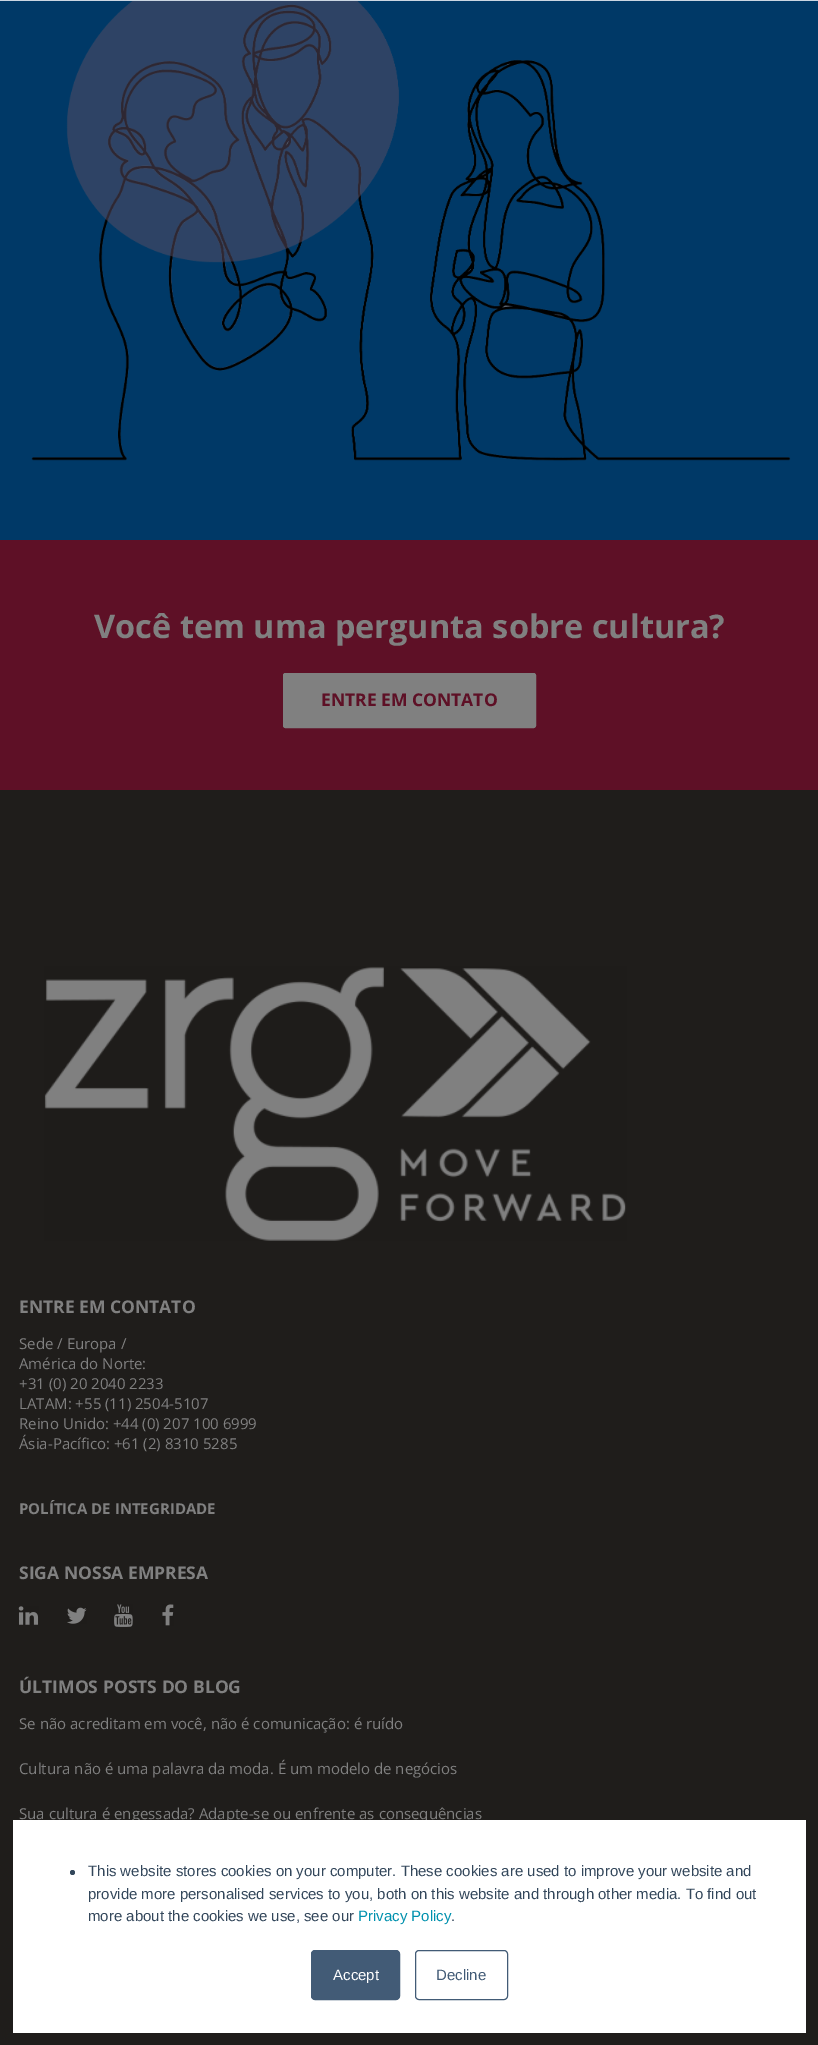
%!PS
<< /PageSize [818 2045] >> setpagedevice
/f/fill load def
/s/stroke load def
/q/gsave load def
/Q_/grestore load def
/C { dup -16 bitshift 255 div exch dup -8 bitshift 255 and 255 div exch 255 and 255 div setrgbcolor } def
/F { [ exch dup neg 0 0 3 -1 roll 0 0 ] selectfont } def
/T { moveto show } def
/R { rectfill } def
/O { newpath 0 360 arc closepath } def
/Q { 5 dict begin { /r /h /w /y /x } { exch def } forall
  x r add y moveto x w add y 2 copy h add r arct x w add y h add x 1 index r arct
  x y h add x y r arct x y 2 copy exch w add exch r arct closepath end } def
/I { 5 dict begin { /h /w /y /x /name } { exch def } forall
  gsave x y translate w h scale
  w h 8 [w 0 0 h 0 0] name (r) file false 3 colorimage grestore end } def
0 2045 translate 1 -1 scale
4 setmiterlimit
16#5E1026 C
0 0 818 2045 R
16#003967 C
0 1 818 539 R
(1.rgb) 31 1 760 460 I
/OpenSans-Bold 32.5 F
16#808080 C
(Você tem uma pergunta sobre cultura?) 94 638 T
283.5 673.5 252 54 2 Q q f Q_
s
/OpenSans-Bold 17.5 F
16#5E1026 C
(ENTRE EM CONTATO) 321 706 T
16#1F1D1B C
0 790 818 1255 R
(2.rgb) 44 966 583 275 I
16#808080 C
(ENTRE EM CONTATO) 19 1313 T
/OpenSans-Regular 15 F
(Sede / Europa /) 19 1349 T
(América do Norte:) 19 1369 T
(+31 \(0\) 20 2040 2233) 19 1389 T
(LATAM: +55 \(11\) 2504-5107) 19 1409 T
(Reino Unido: +44 \(0\) 207 100 6999) 19 1429 T
(Ásia-Pacífico: +61 \(2\) 8310 5285) 19 1449 T
/OpenSans-Bold 15 F
(POLÍTICA DE INTEGRIDADE) 19 1514 T
/OpenSans-Bold 17.5 F
(SIGA NOSSA EMPRESA) 19 1579 T
(3.rgb) 18 1606 21 19 I
(4.rgb) 67 1607 20 17 I
(5.rgb) 114 1604 19 23 I
(6.rgb) 162 1604 12 22 I
(ÚLTIMOS POSTS DO BLOG) 19 1693 T
/OpenSans-Regular 15 F
(Se não acreditam em você, não é comunicação: é ruído) 19 1729 T
(Cultura não é uma palavra da moda. É um modelo de negócios) 19 1774 T
(Sua cultura é engessada? Adapte-se ou enfrente as consequências) 19 1819 T
16#CBD6E2 C
0 0 818 1 R
16#FFFFFF C
13 1820 793 213 R
16#33475B C
72.5 1872.5 2.5 O f
/LiberationSans-Regular 15 F
(This website stores cookies on your computer. These cookies are used to improve your website and) 88 1876 T
(provide more personalised services to you, both on this website and through other media. To find out) 88 1899 T
(more about the cookies we use, see our) 88 1921 T
16#0091AE C
(Privacy Policy) 358 1921 T
16#33475B C
(.) 451 1921 T
16#425B76 C
311.5 1950.5 88 49 3.5 Q q f Q_
s
16#FFFFFF C
(Accept) 333 1980 T
16#425B76 C
415.5 1950.5 92 49 3.5 Q s
(Decline) 436 1980 T
showpage
